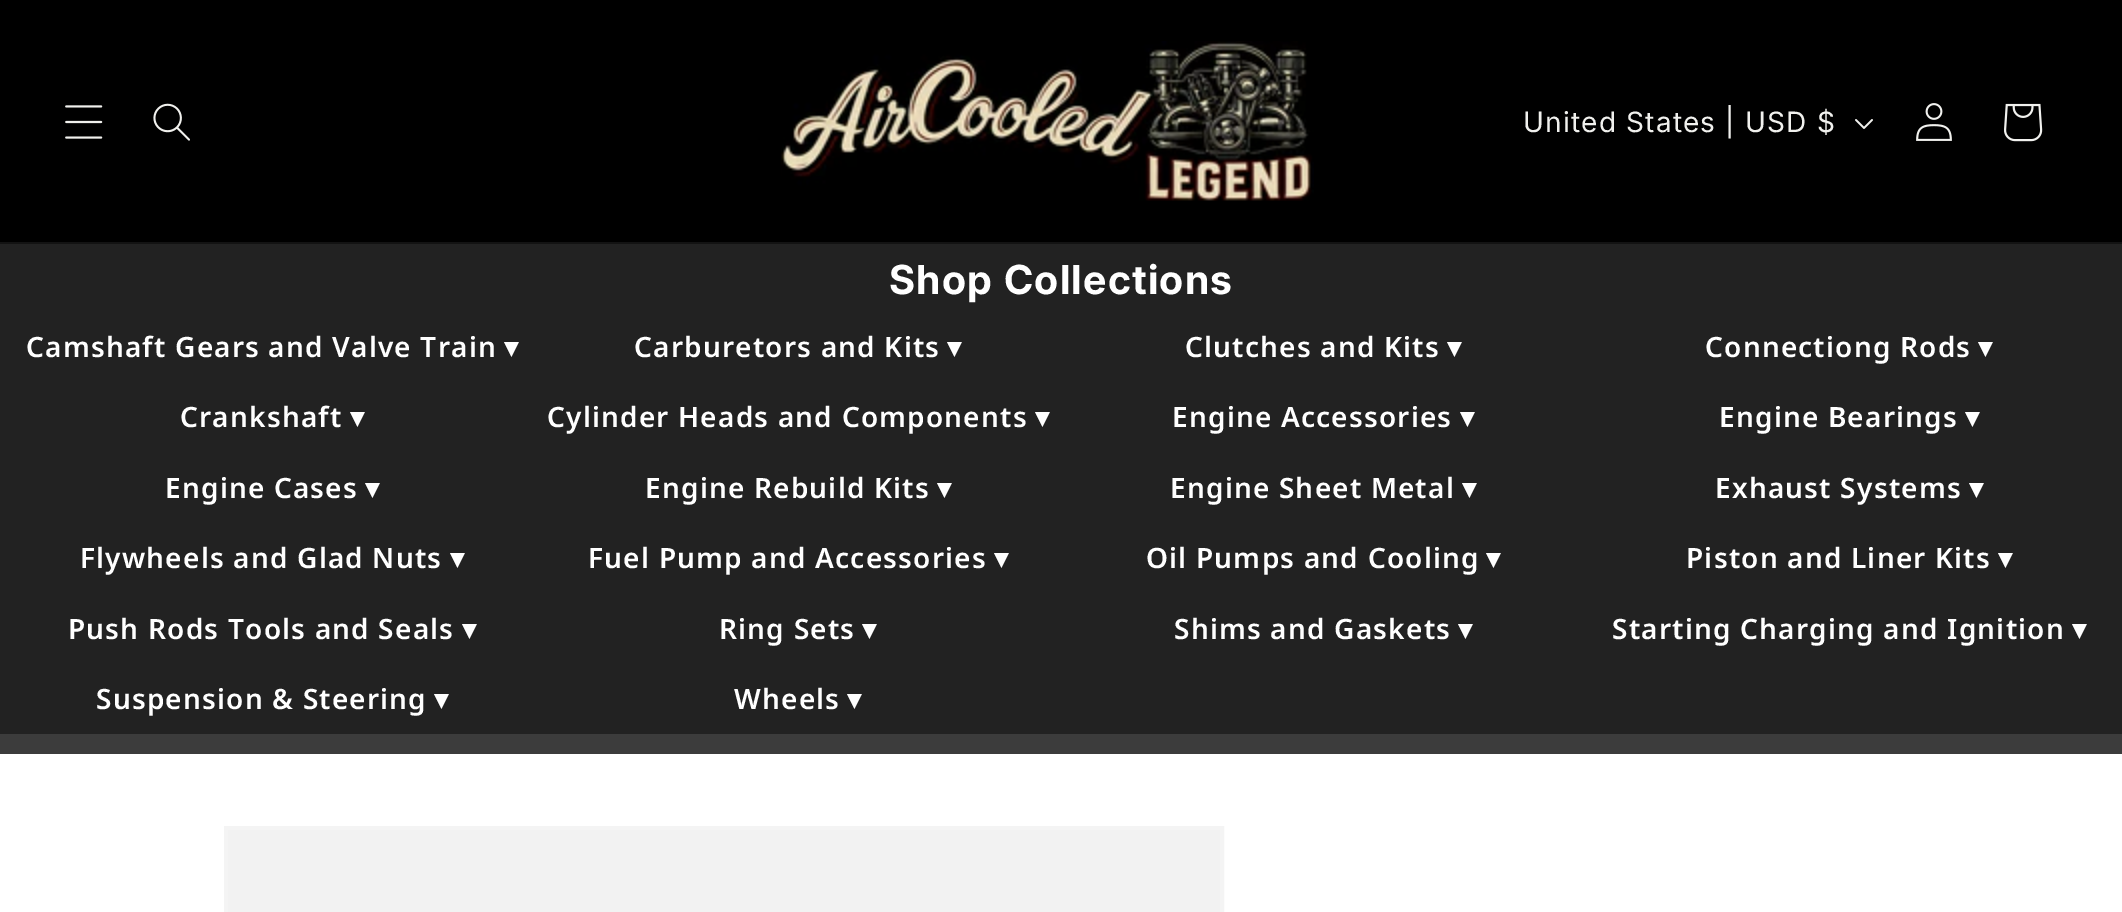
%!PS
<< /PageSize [2122 912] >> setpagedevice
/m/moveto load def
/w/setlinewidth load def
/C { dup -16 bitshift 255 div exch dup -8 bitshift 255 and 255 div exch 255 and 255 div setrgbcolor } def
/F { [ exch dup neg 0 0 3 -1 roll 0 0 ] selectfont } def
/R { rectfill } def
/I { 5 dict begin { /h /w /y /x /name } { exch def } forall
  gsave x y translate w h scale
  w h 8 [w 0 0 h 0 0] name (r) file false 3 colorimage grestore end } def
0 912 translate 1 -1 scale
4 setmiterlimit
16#3C3C3C C
0 0 2122 912 R
16#000000 C
0 0 2122 242 R
16#131313 C
0 242 2122 2 R
(1.rgb) 65 105 38 34 I
(2.rgb) 153 103 37 38 I
(3.rgb) 781 41 533 160 I
/Inter-Regular 28 F
16#F1F1EE C
1523 132 m 1.2 0 (United States | USD $) ashow
(4.rgb) 1855 119 18 10 I
(5.rgb) 1916 103 36 38 I
(6.rgb) 2004 103 39 39 I
16#222222 C
0 244 2122 490 R
/Inter-Bold 40 F
16#FFFFFF C
889 294 m 1.2 0 (Shop Collections) ashow
/NotoSans-SemiBold 28 F
26 357 m 1.2 0 (Camshaft Gears and Valve Train) ashow
/DejaVuSans-Bold 28 F
504 357 m 1.2 0 (▾) ashow
/NotoSans-SemiBold 28 F
634 357 m 1.2 0 (Carburetors and Kits) ashow
/DejaVuSans-Bold 28 F
947 357 m 1.2 0 (▾) ashow
/NotoSans-SemiBold 28 F
1185 357 m 1.2 0 (Clutches and Kits) ashow
/DejaVuSans-Bold 28 F
1447 357 m 1.2 0 (▾) ashow
/NotoSans-SemiBold 28 F
1705 357 m 1.2 0 (Connectiong Rods) ashow
/DejaVuSans-Bold 28 F
1978 357 m 1.2 0 (▾) ashow
/NotoSans-SemiBold 28 F
180 427 m 1.2 0 (Crankshaft) ashow
/DejaVuSans-Bold 28 F
350 427 m 1.2 0 (▾) ashow
/NotoSans-SemiBold 28 F
547 427 m 1.2 0 (Cylinder Heads and Components) ashow
/DejaVuSans-Bold 28 F
1035 427 m 1.2 0 (▾) ashow
/NotoSans-SemiBold 28 F
1172 427 m 1.2 0 (Engine Accessories) ashow
/DejaVuSans-Bold 28 F
1460 427 m 1.2 0 (▾) ashow
/NotoSans-SemiBold 28 F
1719 427 m 1.2 0 (Engine Bearings) ashow
/DejaVuSans-Bold 28 F
1965 427 m 1.2 0 (▾) ashow
/NotoSans-SemiBold 28 F
165 498 m 1.2 0 (Engine Cases) ashow
/DejaVuSans-Bold 28 F
365 498 m 1.2 0 (▾) ashow
/NotoSans-SemiBold 28 F
645 498 m 1.2 0 (Engine Rebuild Kits) ashow
/DejaVuSans-Bold 28 F
937 498 m 1.2 0 (▾) ashow
/NotoSans-SemiBold 28 F
1170 498 m 1.2 0 (Engine Sheet Metal) ashow
/DejaVuSans-Bold 28 F
1462 498 m 1.2 0 (▾) ashow
/NotoSans-SemiBold 28 F
1715 498 m 1.2 0 (Exhaust Systems) ashow
/DejaVuSans-Bold 28 F
1969 498 m 1.2 0 (▾) ashow
/NotoSans-SemiBold 28 F
80 568 m 1.2 0 (Flywheels and Glad Nuts) ashow
/DejaVuSans-Bold 28 F
450 568 m 1.2 0 (▾) ashow
/NotoSans-SemiBold 28 F
588 568 m 1.2 0 (Fuel Pump and Accessories) ashow
/DejaVuSans-Bold 28 F
994 568 m 1.2 0 (▾) ashow
/NotoSans-SemiBold 28 F
1146 568 m 1.2 0 (Oil Pumps and Cooling) ashow
/DejaVuSans-Bold 28 F
1486 568 m 1.2 0 (▾) ashow
/NotoSans-SemiBold 28 F
1686 568 m 1.2 0 (Piston and Liner Kits) ashow
/DejaVuSans-Bold 28 F
1998 568 m 1.2 0 (▾) ashow
/NotoSans-SemiBold 28 F
68 639 m 1.2 0 (Push Rods Tools and Seals) ashow
/DejaVuSans-Bold 28 F
462 639 m 1.2 0 (▾) ashow
/NotoSans-SemiBold 28 F
719 639 m 1.2 0 (Ring Sets) ashow
/DejaVuSans-Bold 28 F
862 639 m 1.2 0 (▾) ashow
/NotoSans-SemiBold 28 F
1174 639 m 1.2 0 (Shims and Gaskets) ashow
/DejaVuSans-Bold 28 F
1458 639 m 1.2 0 (▾) ashow
/NotoSans-SemiBold 28 F
1612 639 m 1.2 0 (Starting Charging and Ignition) ashow
/DejaVuSans-Bold 28 F
2072 639 m 1.2 0 (▾) ashow
/NotoSans-SemiBold 28 F
96 709 m 1.2 0 (Suspension & Steering) ashow
/DejaVuSans-Bold 28 F
434 709 m 1.2 0 (▾) ashow
/NotoSans-SemiBold 28 F
734 709 m 1.2 0 (Wheels) ashow
/DejaVuSans-Bold 28 F
847 709 m 1.2 0 (▾) ashow
0 754 2122 158 R
16#F4F4F4 C
4 w
226 828 996 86 rectstroke
16#F2F2F2 C
228 830 992 82 R
showpage
